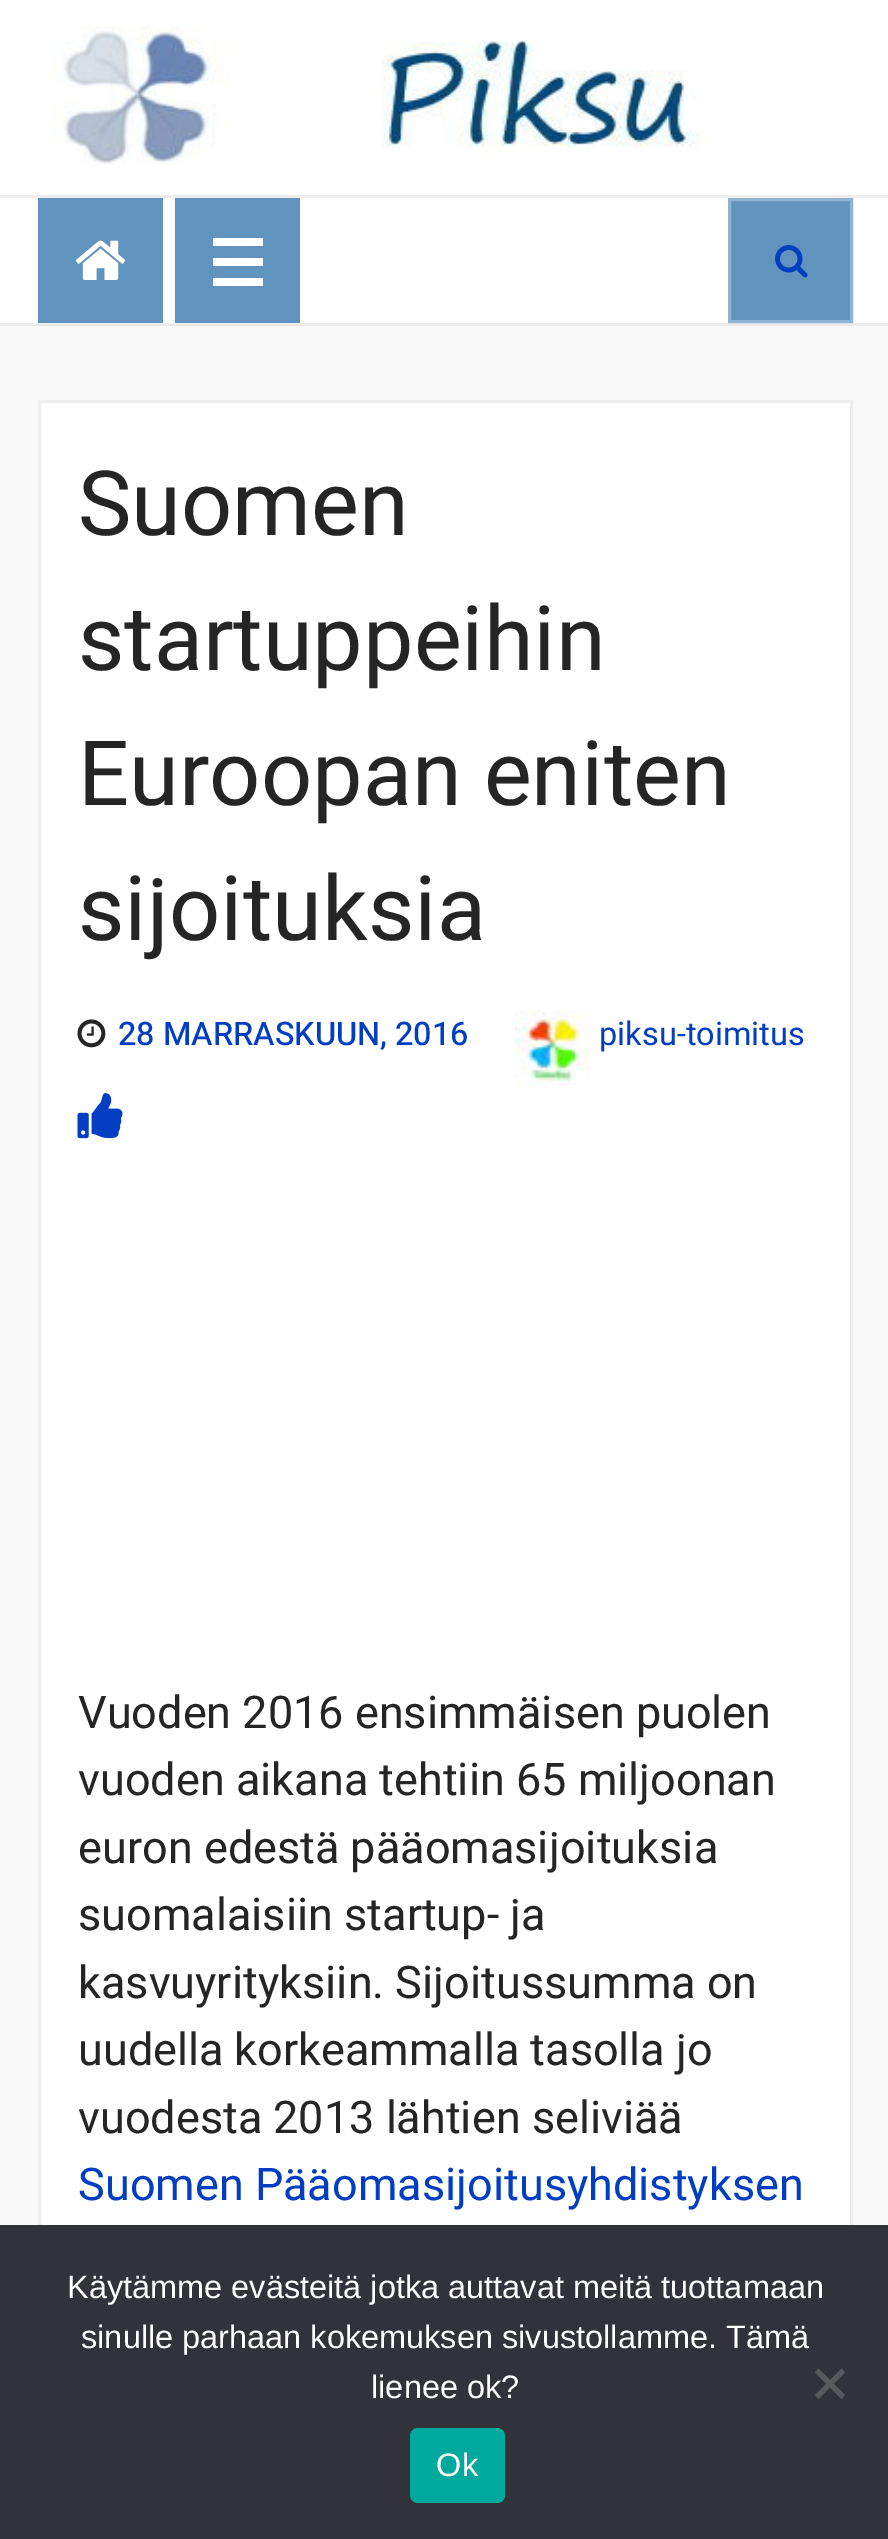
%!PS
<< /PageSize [888 2539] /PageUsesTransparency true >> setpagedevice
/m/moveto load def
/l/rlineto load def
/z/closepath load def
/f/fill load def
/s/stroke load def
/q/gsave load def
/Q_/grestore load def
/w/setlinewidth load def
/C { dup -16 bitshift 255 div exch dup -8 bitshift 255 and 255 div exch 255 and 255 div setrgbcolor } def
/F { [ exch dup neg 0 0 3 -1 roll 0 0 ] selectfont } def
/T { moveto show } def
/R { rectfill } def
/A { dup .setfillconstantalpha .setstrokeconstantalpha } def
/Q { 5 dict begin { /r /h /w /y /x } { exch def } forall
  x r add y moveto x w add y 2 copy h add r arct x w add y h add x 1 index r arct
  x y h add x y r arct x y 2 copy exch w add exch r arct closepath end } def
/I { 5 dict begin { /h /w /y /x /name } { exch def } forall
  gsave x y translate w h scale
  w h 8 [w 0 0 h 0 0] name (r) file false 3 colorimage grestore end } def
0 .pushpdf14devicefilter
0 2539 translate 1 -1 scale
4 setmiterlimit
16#F9F9F9 C
0 0 888 2539 R
16#FFFFFF C
0 0 888 325 R
(1.rgb) 50 25 661 141 I
16#EDEDED C
0 195 888 3 R
0.07 A
16#000000 C
0 323 888 3 R
1 A
16#6193BF C
38 198 125 125 R
(2.rgb) 75 240 51 40 I
175 198 125 125 R
16#FFFFFF C
213 238 50 8 R
213 258 50 8 R
213 278 50 8 R
16#6193BF C
729.5 199.5 m 122 0 l 0 122 l -122 0 l z q f Q_
16#90B3D2 C
3 w
s
(3.rgb) 775 245 33 33 I
16#FFFFFF C
41 403 809 1822 R
16#EDEDED C
39.5 401.5 812 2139 rectstroke
/Heebo-Regular 90 F
16#252525 C
(Suomen) 78 535 T
(startuppeihin) 78 670 T
(Euroopan eniten) 78 805 T
(sijoituksia) 78 940 T
(4.rgb) 77 1019 29 29 I
/Heebo-Medium 32.5 F
16#013EC2 C
(28 MARRASKUUN, 2016) 118 1045 T
(5.rgb) 515 1010 75 75 I
/Heebo-Regular 32.5 F
(piksu-toimitus) 599 1045 T
(6.rgb) 77 1093 46 46 I
/Heebo-Regular 45 F
16#252525 C
(Vuoden 2016 ensimmäisen puolen) 78 1728 T
(vuoden aikana tehtiin 65 miljoonan) 78 1795 T
(euron edestä pääomasijoituksia) 78 1863 T
(suomalaisiin startup- ja) 78 1930 T
(kasvuyrityksiin. Sijoitussumma on) 78 1998 T
(uudella korkeammalla tasolla jo) 78 2065 T
(vuodesta 2013 lähtien seliviää) 78 2133 T
16#013EC2 C
(Suomen Pääomasijoitusyhdistyksen) 78 2200 T
16#32323A C
0 2225 888 314 R
/LiberationSans-Regular 32.5 F
16#FFFFFF C
(Käytämme evästeitä jotka auttavat meitä tuottamaan) 67 2298 T
(sinulle parhaan kokemuksen sivustollamme. Tämä) 81 2348 T
(lienee ok?) 371 2398 T
16#59595D C
841.5 2368.5 m 3.5 4 l -26.5 26.5 l -3.5 -4 l z f
815 2372.5 m 3.5 -4 l 26.5 26.5 l -3.5 4 l z f
16#00A99D C
410 2428 95 75 8 Q f
16#FFFFFF C
436 2476 m 1 0 (Ok) ashow
.poppdf14devicefilter showpage
